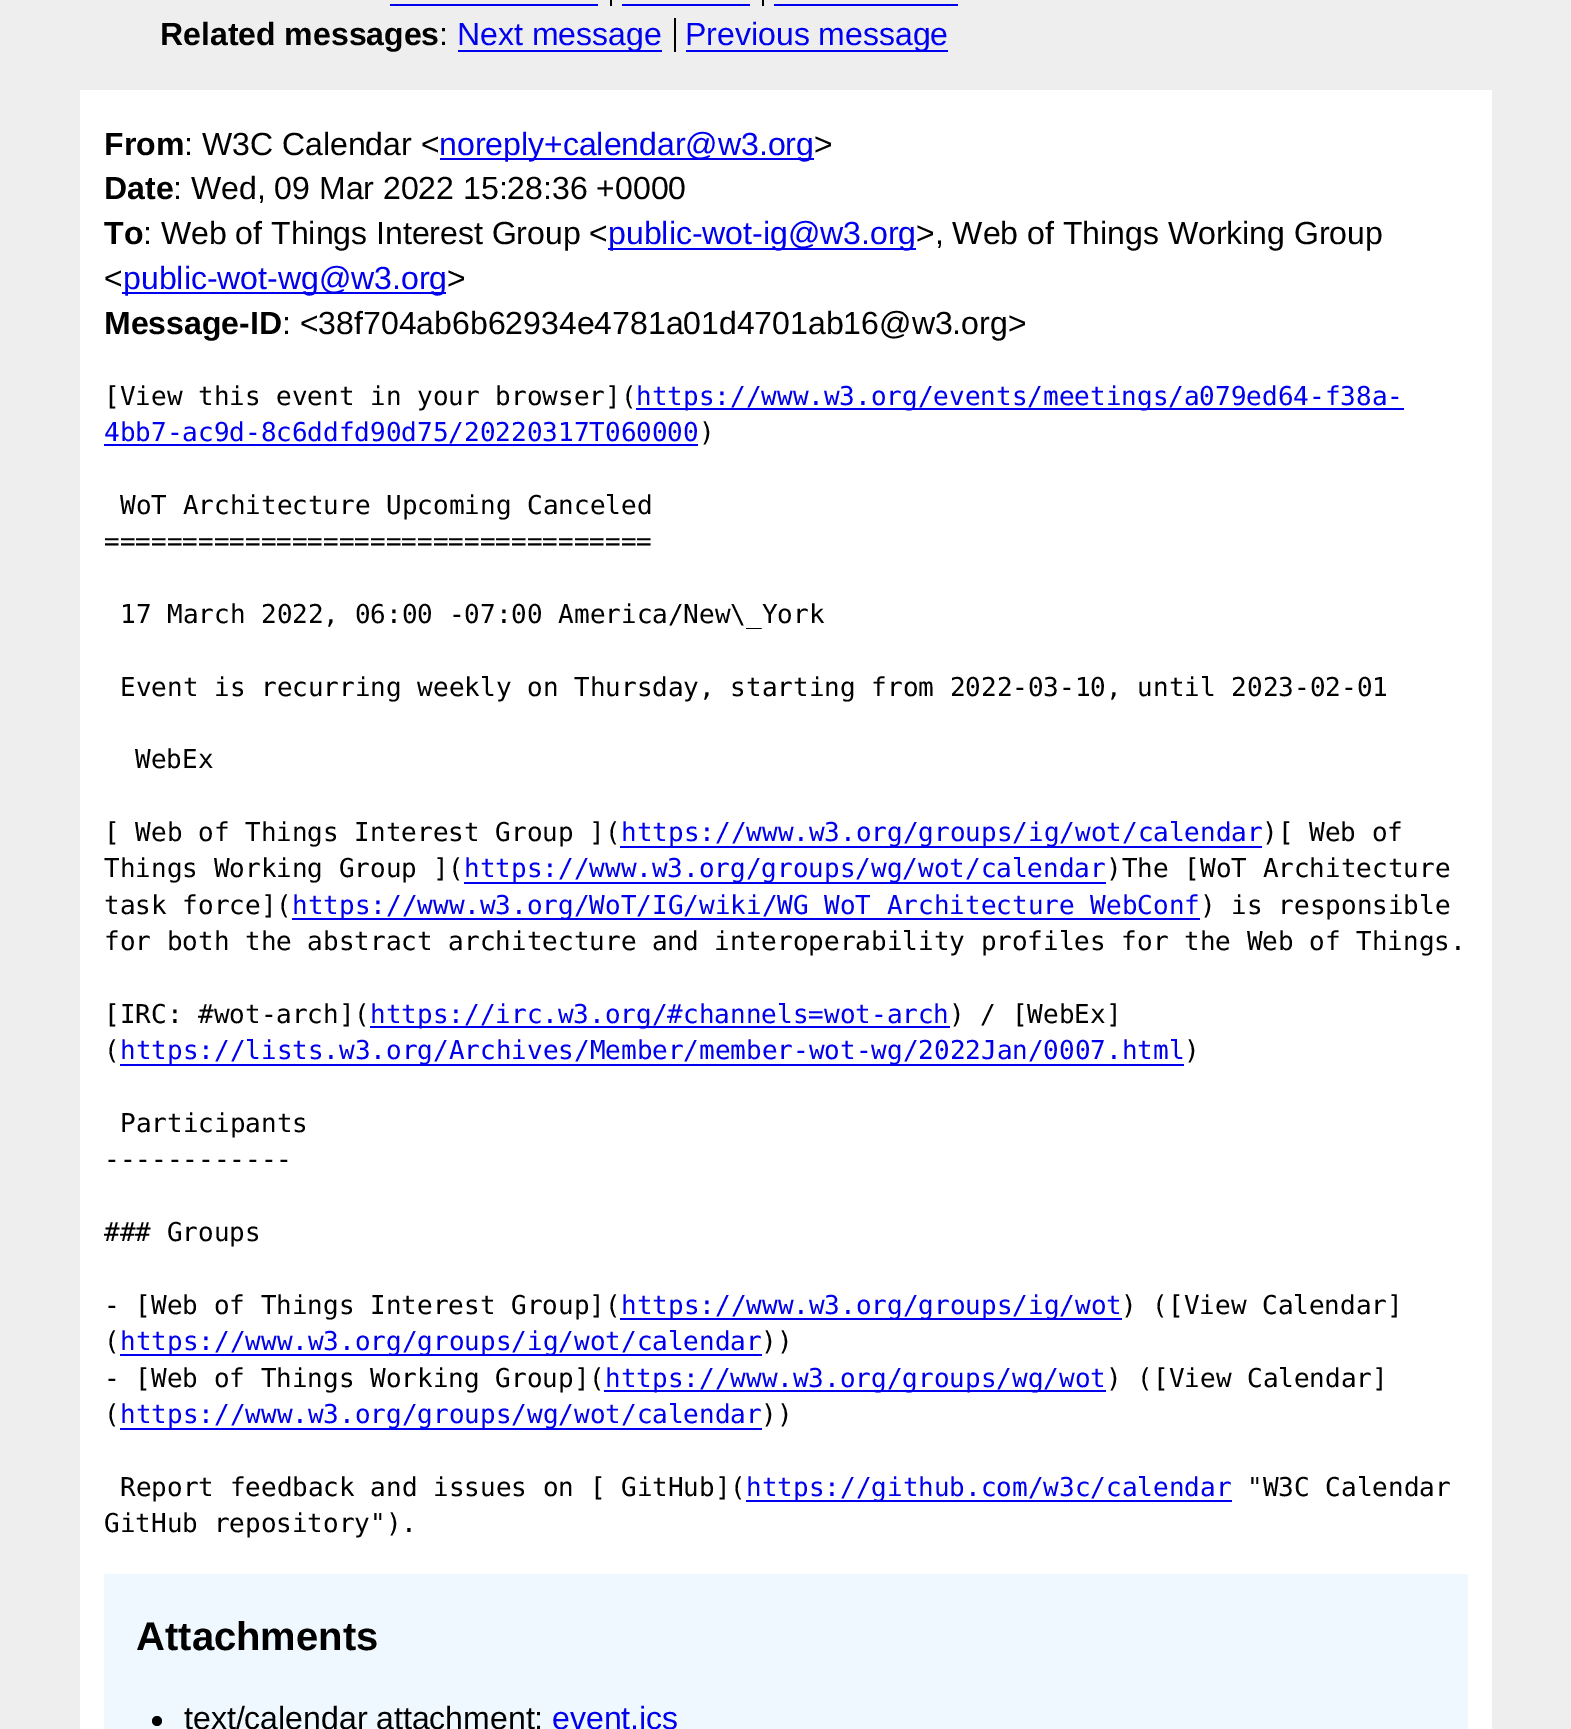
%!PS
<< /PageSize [1571 1729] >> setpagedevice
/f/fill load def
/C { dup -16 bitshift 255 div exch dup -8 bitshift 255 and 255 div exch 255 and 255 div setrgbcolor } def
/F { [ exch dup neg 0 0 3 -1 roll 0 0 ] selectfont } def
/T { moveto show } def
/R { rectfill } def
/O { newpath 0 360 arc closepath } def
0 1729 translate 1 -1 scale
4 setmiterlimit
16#EEEEEE C
0 0 1571 1729 R
16#0000EE C
390 4 208 2 R
16#000000 C
610 0 2 6 R
16#0000EE C
622 4 128 2 R
16#000000 C
762 0 2 6 R
16#0000EE C
774 4 184 2 R
/LiberationSans-Bold 32 F
16#000000 C
(Related messages) 160 45 T
/LiberationSans-Regular 32 F
(:) 439 45 T
16#0000EE C
458 50 204 2 R
(Next message) 457 45 T
686 50 262 2 R
(Previous message) 685 45 T
16#000000 C
674 18 2 34 R
16#FFFFFF C
80 90 1412 1639 R
/LiberationSans-Bold 32 F
16#000000 C
(From) 104 155 T
/LiberationSans-Regular 32 F
(: W3C Calendar <) 184 155 T
16#0000EE C
440 158 374 2 R
(noreply+calendar@w3.org) 439 155 T
16#000000 C
(>) 814 155 T
/LiberationSans-Bold 32 F
(Date) 104 199 T
/LiberationSans-Regular 32 F
(: Wed, 09 Mar 2022 15:28:36 +0000) 173 199 T
/LiberationSans-Bold 32 F
(To) 104 244 T
/LiberationSans-Regular 32 F
(: Web of Things Interest Group <) 143 244 T
16#0000EE C
608 248 308 2 R
(public-wot-ig@w3.org) 608 244 T
16#000000 C
(>, Web of Things Working Group) 916 244 T
(<) 104 289 T
16#0000EE C
122 292 324 2 R
(public-wot-wg@w3.org) 123 289 T
16#000000 C
(>) 447 289 T
/LiberationSans-Bold 32 F
(Message-ID) 104 334 T
/LiberationSans-Regular 32 F
(: <38f704ab6b62934e4781a01d4701ab16@w3.org>) 282 334 T
/DejaVuSansMono-Regular 26 F
([View this event in your browser]\() 104 405 T
16#0000EE C
636 408 768 2 R
(https://www.w3.org/events/meetings/a079ed64-f38a-) 636 405 T
(4bb7-ac9d-8c6ddfd90d75/20220317T060000) 104 441 T
104 444 594 2 R
16#000000 C
(\)) 699 441 T
(WoT Architecture Upcoming Canceled) 120 514 T
(===================================) 104 550 T
(17 March 2022, 06:00 -07:00 America/New\\_York) 120 623 T
(Event is recurring weekly on Thursday, starting from 2022-03-10, until 2023-02-01) 120 696 T
(WebEx) 135 768 T
([ Web of Things Interest Group ]\() 104 841 T
16#0000EE C
620 846 642 2 R
(https://www.w3.org/groups/ig/wot/calendar) 621 841 T
16#000000 C
(\)[ Web of) 1262 841 T
(Things Working Group ]\() 104 877 T
16#0000EE C
464 882 642 2 R
(https://www.w3.org/groups/wg/wot/calendar) 464 877 T
16#000000 C
(\)The [WoT Architecture) 1106 877 T
(task force]\() 104 914 T
16#0000EE C
292 918 908 2 R
(https://www.w3.org/WoT/IG/wiki/WG_WoT_Architecture_WebConf) 292 914 T
16#000000 C
(\) is responsible) 1200 914 T
(for both the abstract architecture and interoperability profiles for the Web of Things.) 104 950 T
([IRC: #wot-arch]\() 104 1023 T
16#0000EE C
370 1026 580 2 R
(https://irc.w3.org/#channels=wot-arch) 370 1023 T
16#000000 C
(\) / [WebEx]) 949 1023 T
(\() 104 1059 T
16#0000EE C
120 1064 1064 2 R
(https://lists.w3.org/Archives/Member/member-wot-wg/2022Jan/0007.html) 120 1059 T
16#000000 C
(\)) 1184 1059 T
(Participants) 120 1132 T
(------------) 104 1168 T
(### Groups) 104 1241 T
(- [Web of Things Interest Group]\() 104 1314 T
16#0000EE C
620 1318 502 2 R
(https://www.w3.org/groups/ig/wot) 621 1314 T
16#000000 C
(\) \([View Calendar]) 1121 1314 T
(\() 104 1350 T
16#0000EE C
120 1354 642 2 R
(https://www.w3.org/groups/ig/wot/calendar) 120 1350 T
16#000000 C
(\)\)) 761 1350 T
(- [Web of Things Working Group]\() 104 1387 T
16#0000EE C
604 1390 502 2 R
(https://www.w3.org/groups/wg/wot) 605 1387 T
16#000000 C
(\) \([View Calendar]) 1106 1387 T
(\() 104 1423 T
16#0000EE C
120 1428 642 2 R
(https://www.w3.org/groups/wg/wot/calendar) 120 1423 T
16#000000 C
(\)\)) 761 1423 T
(Report feedback and issues on [ GitHub]\() 120 1496 T
16#0000EE C
746 1500 486 2 R
(https://github.com/w3c/calendar) 746 1496 T
16#000000 C
("W3C Calendar) 1247 1496 T
(GitHub repository"\).) 104 1532 T
16#F0F8FF C
104 1574 1364 155 R
/LiberationSans-Bold 40 F
16#000000 C
(Attachments) 136 1650 T
157 1721 5 O f
/LiberationSans-Regular 32 F
(text/calendar attachment:) 184 1729 T
16#0000EE C
(event.ics) 552 1729 T
showpage
